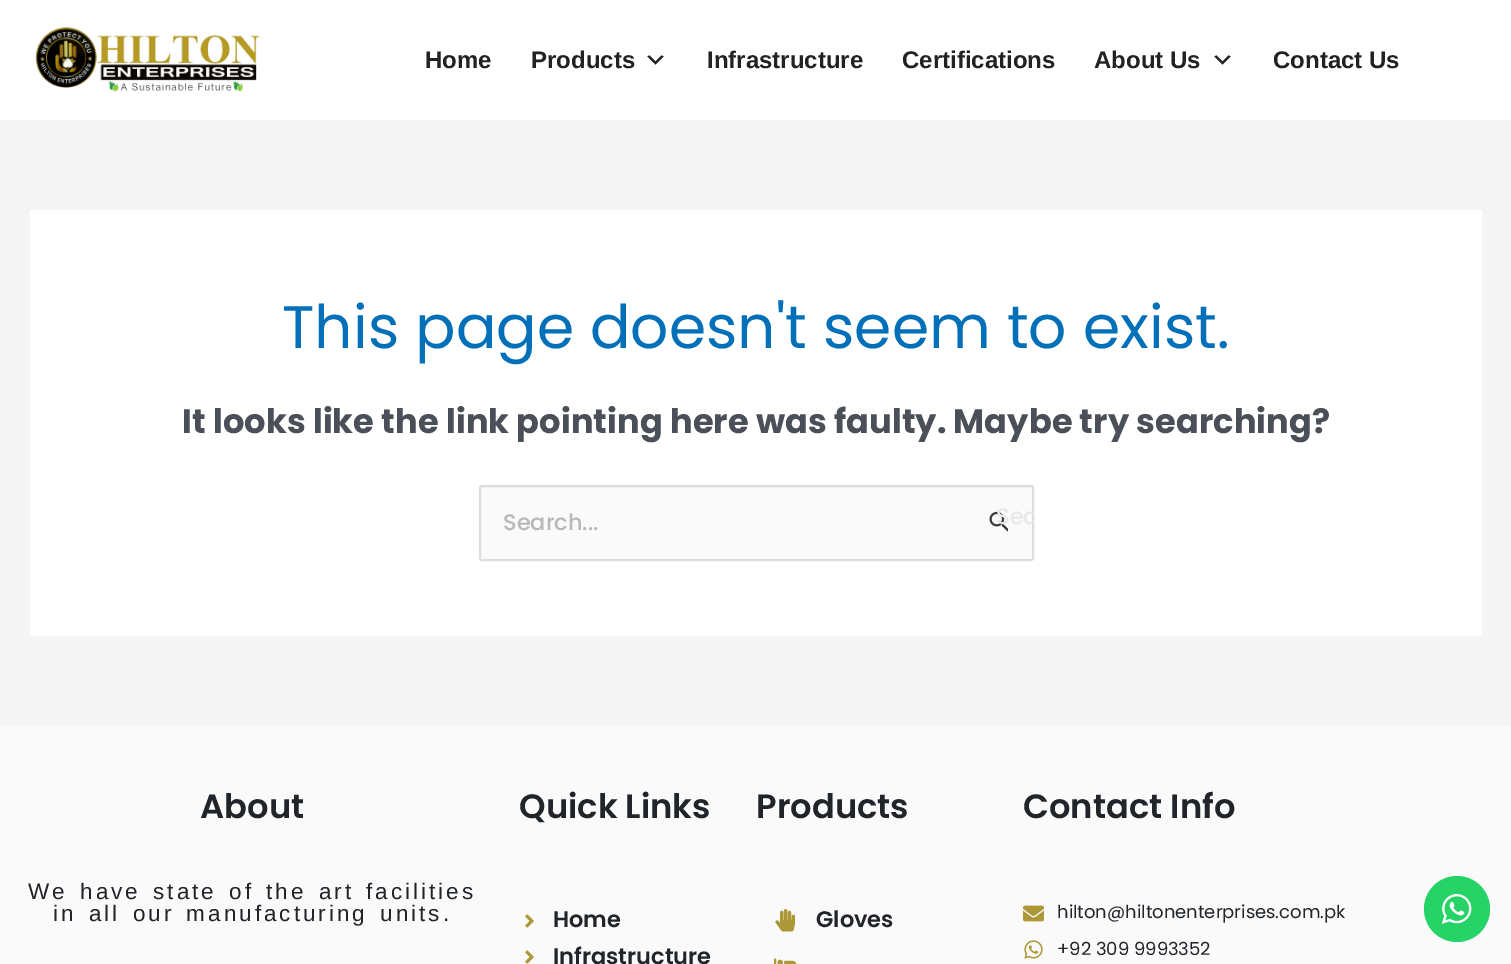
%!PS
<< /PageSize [1511 964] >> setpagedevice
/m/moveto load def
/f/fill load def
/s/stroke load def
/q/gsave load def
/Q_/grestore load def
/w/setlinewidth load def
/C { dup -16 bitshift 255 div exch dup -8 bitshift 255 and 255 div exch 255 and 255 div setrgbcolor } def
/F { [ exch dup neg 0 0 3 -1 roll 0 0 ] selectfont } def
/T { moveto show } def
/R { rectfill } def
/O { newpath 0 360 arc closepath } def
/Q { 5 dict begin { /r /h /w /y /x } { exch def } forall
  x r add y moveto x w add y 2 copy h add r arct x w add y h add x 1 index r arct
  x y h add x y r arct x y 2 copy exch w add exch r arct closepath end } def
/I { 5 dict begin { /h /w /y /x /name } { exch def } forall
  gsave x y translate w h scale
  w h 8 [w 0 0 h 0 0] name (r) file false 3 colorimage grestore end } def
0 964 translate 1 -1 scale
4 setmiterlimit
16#F5F5F5 C
0 0 1511 964 R
16#FFFFFF C
0 0 1511 120 R
(1.rgb) 35 26 225 66 I
/LiberationSans-Bold 24 F
16#222222 C
(Home) 425 68 T
(Products) 531 68 T
(2.rgb) 647 55 17 10 I
(Infrastructure) 707 68 T
(Certifications) 902 68 T
(About Us) 1094 68 T
(2.rgb) 1214 55 17 10 I
(Contact Us) 1273 68 T
16#FFFFFF C
30 210 1452 426 R
/Poppins-Regular 60 F
16#0170B9 C
(This page doesn't seem to exist.) 282 348 T
/Poppins-Bold 33.75 F
16#4B4F58 C
(It looks like the link pointing here was faulty. Maybe try searching?) 182 433 T
16#FAFAFA C
480 486 553 74 2 Q q f Q_
16#DDDDDD C
2 w
s
/Poppins-Medium 22.5 F
16#B8B8B8 C
(Search...) 503 530 T
(3.rgb) 989 511 19 21 I
q
966 485 68 61 3 Q clip newpath
16#E8E8E8 C
(Sea) 996 524 T
Q_
16#FAFAFA C
0 726 1511 238 R
/Poppins-SemiBold 33.75 F
16#212529 C
(About) 200 818 T
/LiberationSans-Regular 22.5 F
28 899 m 3 0 32 3 0 (We have state of the art facilities) awidthshow
53 921 m 3 0 32 3 0 (in all our manufacturing units.) awidthshow
/Poppins-SemiBold 33.75 F
(Quick Links) 519 818 T
(4.rgb) 525 914 9 14 I
/Poppins-SemiBold 22.5 F
(Home) 553 927 T
(4.rgb) 525 950 9 14 I
(Infrastructure) 553 964 T
/Poppins-SemiBold 33.75 F
(Products) 756 818 T
(5.rgb) 775 909 21 23 I
/Poppins-SemiBold 22.5 F
(Gloves) 816 927 T
(6.rgb) 774 958 23 6 I
/Poppins-SemiBold 33.75 F
(Contact Info) 1023 818 T
(7.rgb) 1023 905 21 17 I
/Poppins-Regular 18 F
(hilton@hiltonenterprises.com.pk) 1057 918 T
(8.rgb) 1024 940 19 19 I
(+92 309 9993352) 1057 955 T
16#25D366 C
1457 909 33 O f
(9.rgb) 1442 894 30 30 I
showpage
